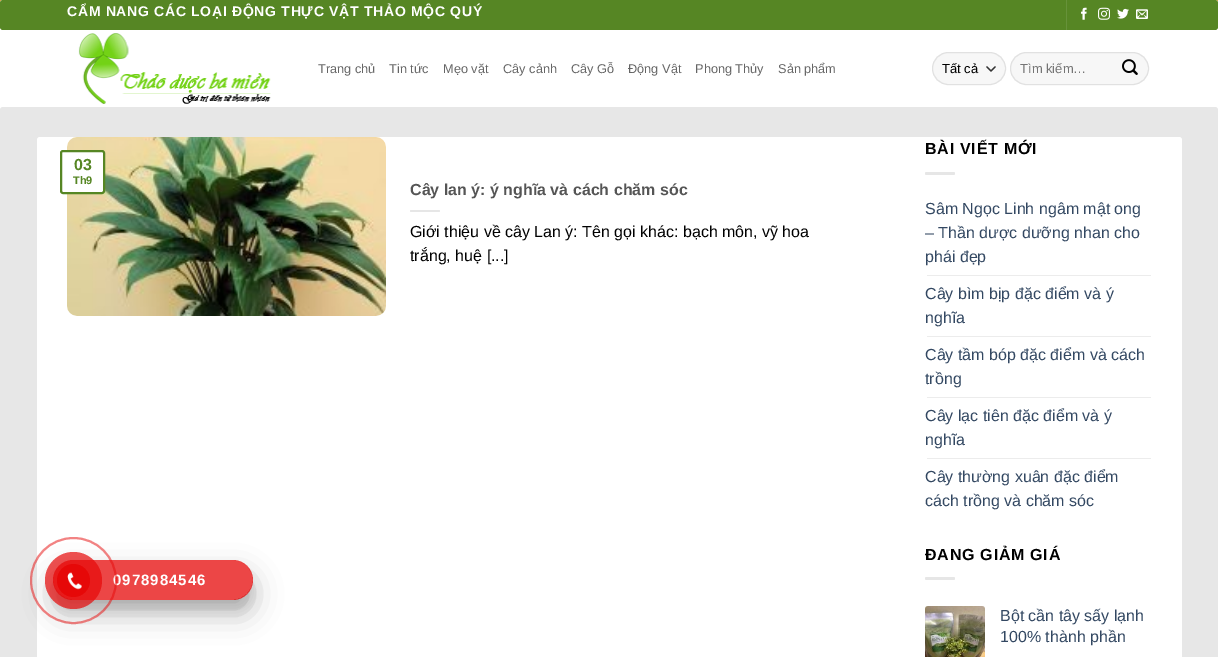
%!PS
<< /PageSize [1218 657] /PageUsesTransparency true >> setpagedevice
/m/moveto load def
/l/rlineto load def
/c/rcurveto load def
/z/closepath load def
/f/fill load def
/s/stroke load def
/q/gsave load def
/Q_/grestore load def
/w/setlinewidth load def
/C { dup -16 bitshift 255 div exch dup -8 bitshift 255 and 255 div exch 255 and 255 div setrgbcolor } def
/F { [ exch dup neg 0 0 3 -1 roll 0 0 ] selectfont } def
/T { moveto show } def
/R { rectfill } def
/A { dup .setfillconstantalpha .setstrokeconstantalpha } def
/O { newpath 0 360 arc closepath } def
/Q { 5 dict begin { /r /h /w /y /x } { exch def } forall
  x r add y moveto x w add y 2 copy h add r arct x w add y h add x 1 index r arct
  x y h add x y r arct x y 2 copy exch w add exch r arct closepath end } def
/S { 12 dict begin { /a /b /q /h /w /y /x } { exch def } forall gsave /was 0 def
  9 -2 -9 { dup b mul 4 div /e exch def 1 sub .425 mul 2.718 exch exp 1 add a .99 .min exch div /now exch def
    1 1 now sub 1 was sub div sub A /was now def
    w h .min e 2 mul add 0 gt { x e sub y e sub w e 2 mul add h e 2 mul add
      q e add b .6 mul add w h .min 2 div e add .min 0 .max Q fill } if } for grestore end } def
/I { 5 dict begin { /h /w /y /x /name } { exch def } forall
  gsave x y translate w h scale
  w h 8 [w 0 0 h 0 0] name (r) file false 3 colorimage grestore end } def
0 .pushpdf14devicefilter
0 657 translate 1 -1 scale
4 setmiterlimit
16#DD9933 C
0 0 1218 657 R
16#FFFFFF C
0 0 1218 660 3 Q f
0 0 1218 107 3 Q f
16#568624 C
0 0 1218 30 3 Q f
/LiberationSans-Bold 14 F
16#FFFFFF C
67 16 m .7 0 (CẨM NANG CÁC LOẠI ĐỘNG THỰC VẬT THẢO MỘC QUÝ) ashow
16#67923A C
1066 0 1 30 R
(1.rgb) 1081 7 6 13 I
(2.rgb) 1098 7 12 13 I
(3.rgb) 1117 8 12 11 I
(4.rgb) 1136 9 12 10 I
(5.rgb) 78 33 193 71 I
/LiberationSans-Regular 12.75 F
16#656565 C
(Trang chủ) 318 73 T
(Tin tức) 389 73 T
(Mẹo vặt) 443 73 T
(Cây cảnh) 503 73 T
(Cây Gỗ) 571 73 T
(Động Vật) 628 73 T
(Phong Thủy) 695 73 T
(Sản phẩm) 778 73 T
16#F7F7F7 C
932 52 74 33 16.5 Q f
16#333333 C
1.3 w
1 setlinecap
1 setlinejoin
987 67 m 4 4 l 4 -4 l s
0.09 A
16#000000 C
1 w
0 setlinecap
0 setlinejoin
932.5 52.5 73 32 16 Q s
/LiberationSans-Regular 13 F
1 A
(Tất cả) 942 73 T
16#F7F7F7 C
1010 52 139 33 16.5 Q f
0.09 A
16#000000 C
1010.5 52.5 138 32 16 Q s
1 A
16#757575 C
(Tìm kiếm…) 1020 73 T
(6.rgb) 1122 59 16 16 I
16#E7E7E7 C
0 107 1218 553 3 Q f
16#FFFFFF C
37 137 1145 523 3 Q f
(7.rgb) 67 137 319 179 I
61 151 43 42 2 Q q f Q_
16#568624 C
2 w
s
/LiberationSans-Bold 16 F
(03) 74 170 T
/LiberationSans-Bold 11 F
(Th9) 73 184 T
/LiberationSans-Bold 16 F
16#555555 C
(Cây lan ý: ý nghĩa và cách chăm sóc) 410 195 T
16#E6E6E6 C
410 210 30 2 1 Q f
/LiberationSans-Regular 16 F
16#000000 C
(Giới thiệu về cây Lan ý: Tên gọi khác: bạch môn, vỹ hoa) 410 237 T
(trắng, huệ [...]) 410 261 T
/LiberationSans-Bold 16 F
925 154 m .75 0 (BÀI VIẾT MỚI) ashow
16#E6E6E6 C
925 172 30 3 1.5 Q f
/LiberationSans-Regular 16 F
16#334862 C
(Sâm Ngọc Linh ngâm mật ong) 925 214 T
(– Thần dược dưỡng nhan cho) 925 238 T
(phái đẹp) 925 262 T
16#ECECEC C
927 275 224 1 R
16#334862 C
(Cây bìm bịp đặc điểm và ý) 925 299 T
(nghĩa) 925 323 T
16#ECECEC C
927 336 224 1 R
16#334862 C
(Cây tầm bóp đặc điểm và cách) 925 360 T
(trồng) 925 384 T
16#ECECEC C
927 397 224 1 R
16#334862 C
(Cây lạc tiên đặc điểm và ý) 925 421 T
(nghĩa) 925 445 T
16#ECECEC C
927 458 224 1 R
16#334862 C
(Cây thường xuân đặc điểm) 925 482 T
(cách trồng và chăm sóc) 925 506 T
/LiberationSans-Bold 16 F
16#000000 C
925 560 m .75 0 (ĐANG GIẢM GIÁ) ashow
16#E6E6E6 C
925 577 30 3 1.5 Q f
(8.rgb) 925 606 60 51 I
/LiberationSans-Regular 16 F
16#334862 C
(Bột cần tây sấy lạnh) 1000 621 T
(100% thành phần) 1000 642 T
q
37 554 m 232 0 l 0 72 l -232 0 l z 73 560 m 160 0 l 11 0 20 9 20 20 c 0 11 -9 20 -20 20 c -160 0 l -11 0 -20 -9 -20 -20 c 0 -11 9 -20 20 -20 c z eoclip newpath
16#000000 C
53 570 200 40 20 5 .1 S
Q_
q
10 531 m 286 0 l 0 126 l -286 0 l z 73 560 m 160 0 l 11 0 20 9 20 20 c 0 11 -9 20 -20 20 c -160 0 l -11 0 -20 -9 -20 -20 c 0 -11 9 -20 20 -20 c z eoclip newpath
16#000000 C
53 574 200 40 20 14 .25 S
Q_
0.75 A
16#E60808 C
53 560 200 40 20 Q f
/LiberationSans-Bold 15 F
1 A
16#FFFFFF C
113 585 m 1 0 (0978984546) ashow
0.5 A
16#E60808 C
73.5 580.5 42.5 O s
0.7 A
73.5 580.5 28.5 O f
1 A
73.5 580.5 16.5 O f
(9.rgb) 67 572 15 18 I
.poppdf14devicefilter showpage
